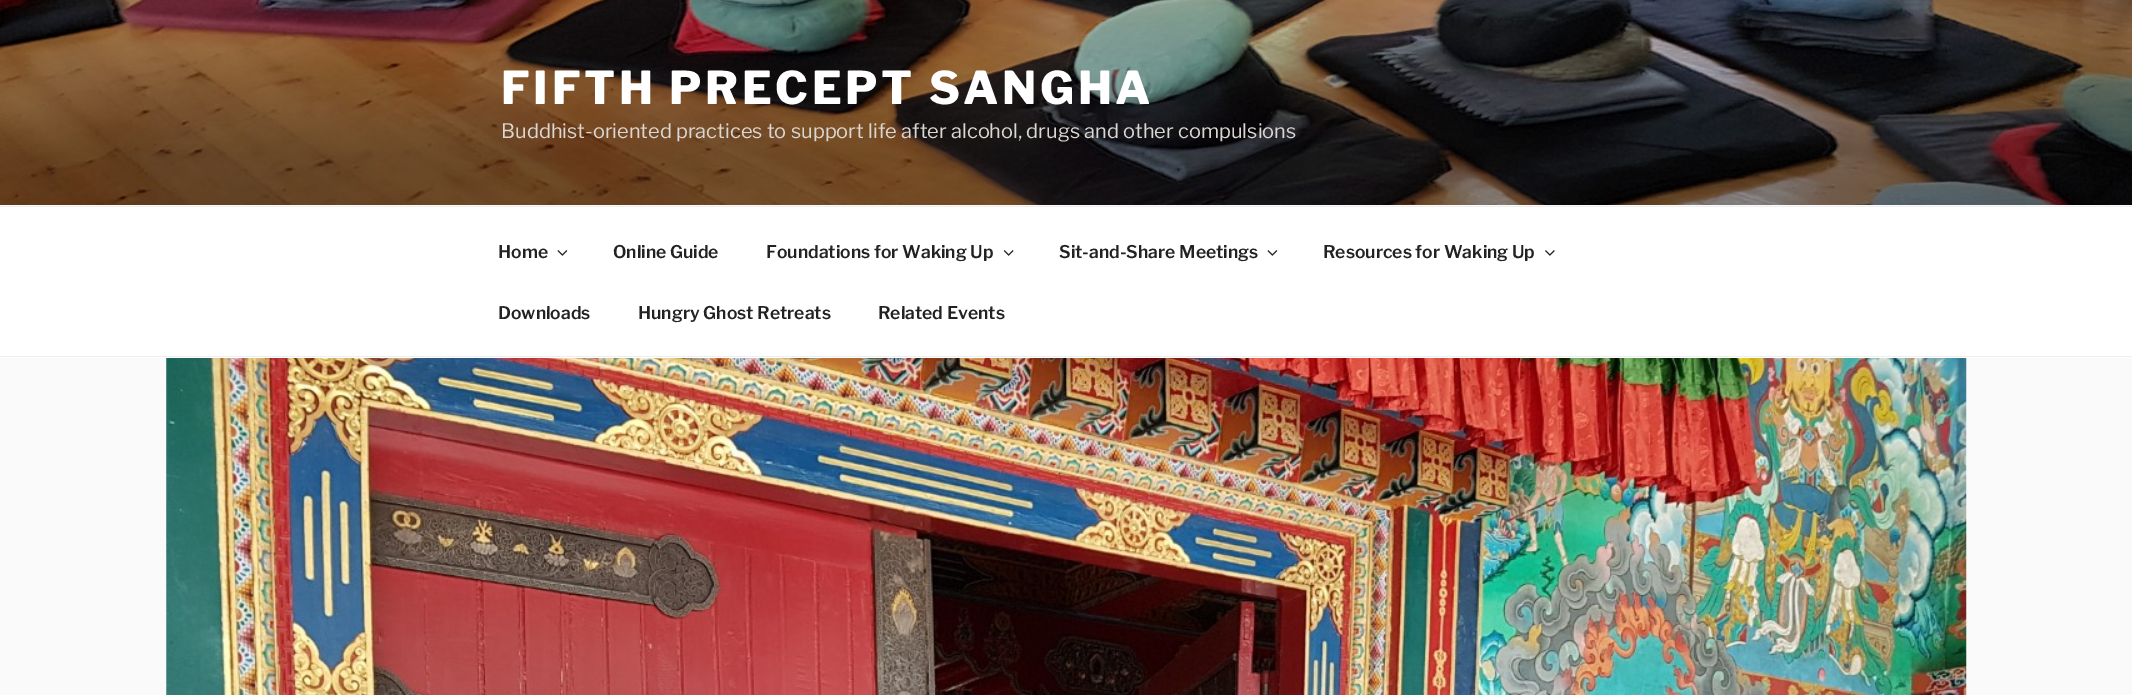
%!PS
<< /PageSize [2132 695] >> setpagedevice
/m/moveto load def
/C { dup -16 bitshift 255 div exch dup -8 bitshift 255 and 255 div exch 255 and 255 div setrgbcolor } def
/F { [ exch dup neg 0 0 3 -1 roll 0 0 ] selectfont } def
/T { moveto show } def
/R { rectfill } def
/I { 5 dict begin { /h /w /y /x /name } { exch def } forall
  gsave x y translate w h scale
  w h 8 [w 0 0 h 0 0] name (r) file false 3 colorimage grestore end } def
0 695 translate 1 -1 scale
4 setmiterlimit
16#FAFAFA C
0 0 2132 695 R
(1.rgb) 0 0 2132 205 I
/LibreFranklin-Thin 45 F
16#FFFFFF C
501 104 m 3.6 0 (FIFTH PRECEPT SANGHA) ashow
/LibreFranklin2-Thin 20 F
16#DAD6D2 C
(Buddhist-oriented practices to support life after alcohol, drugs and other compulsions) 501 138 T
16#FFFFFF C
0 207 2132 151 R
16#EEEEEE C
0 206 2132 1 R
0 356 2132 1 R
/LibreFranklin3-Thin 17.5 F
16#222222 C
(Home) 498 258 T
(2.rgb) 557 250 11 6 I
(Online Guide) 613 258 T
(Foundations for Waking Up) 766 258 T
(3.rgb) 1003 250 11 6 I
(Sit-and-Share Meetings) 1059 258 T
(2.rgb) 1267 250 11 6 I
(Resources for Waking Up) 1323 258 T
(4.rgb) 1545 250 10 6 I
(Downloads) 498 319 T
(Hungry Ghost Retreats) 638 319 T
(Related Events) 878 319 T
(5.rgb) 166 358 1801 337 I
showpage
